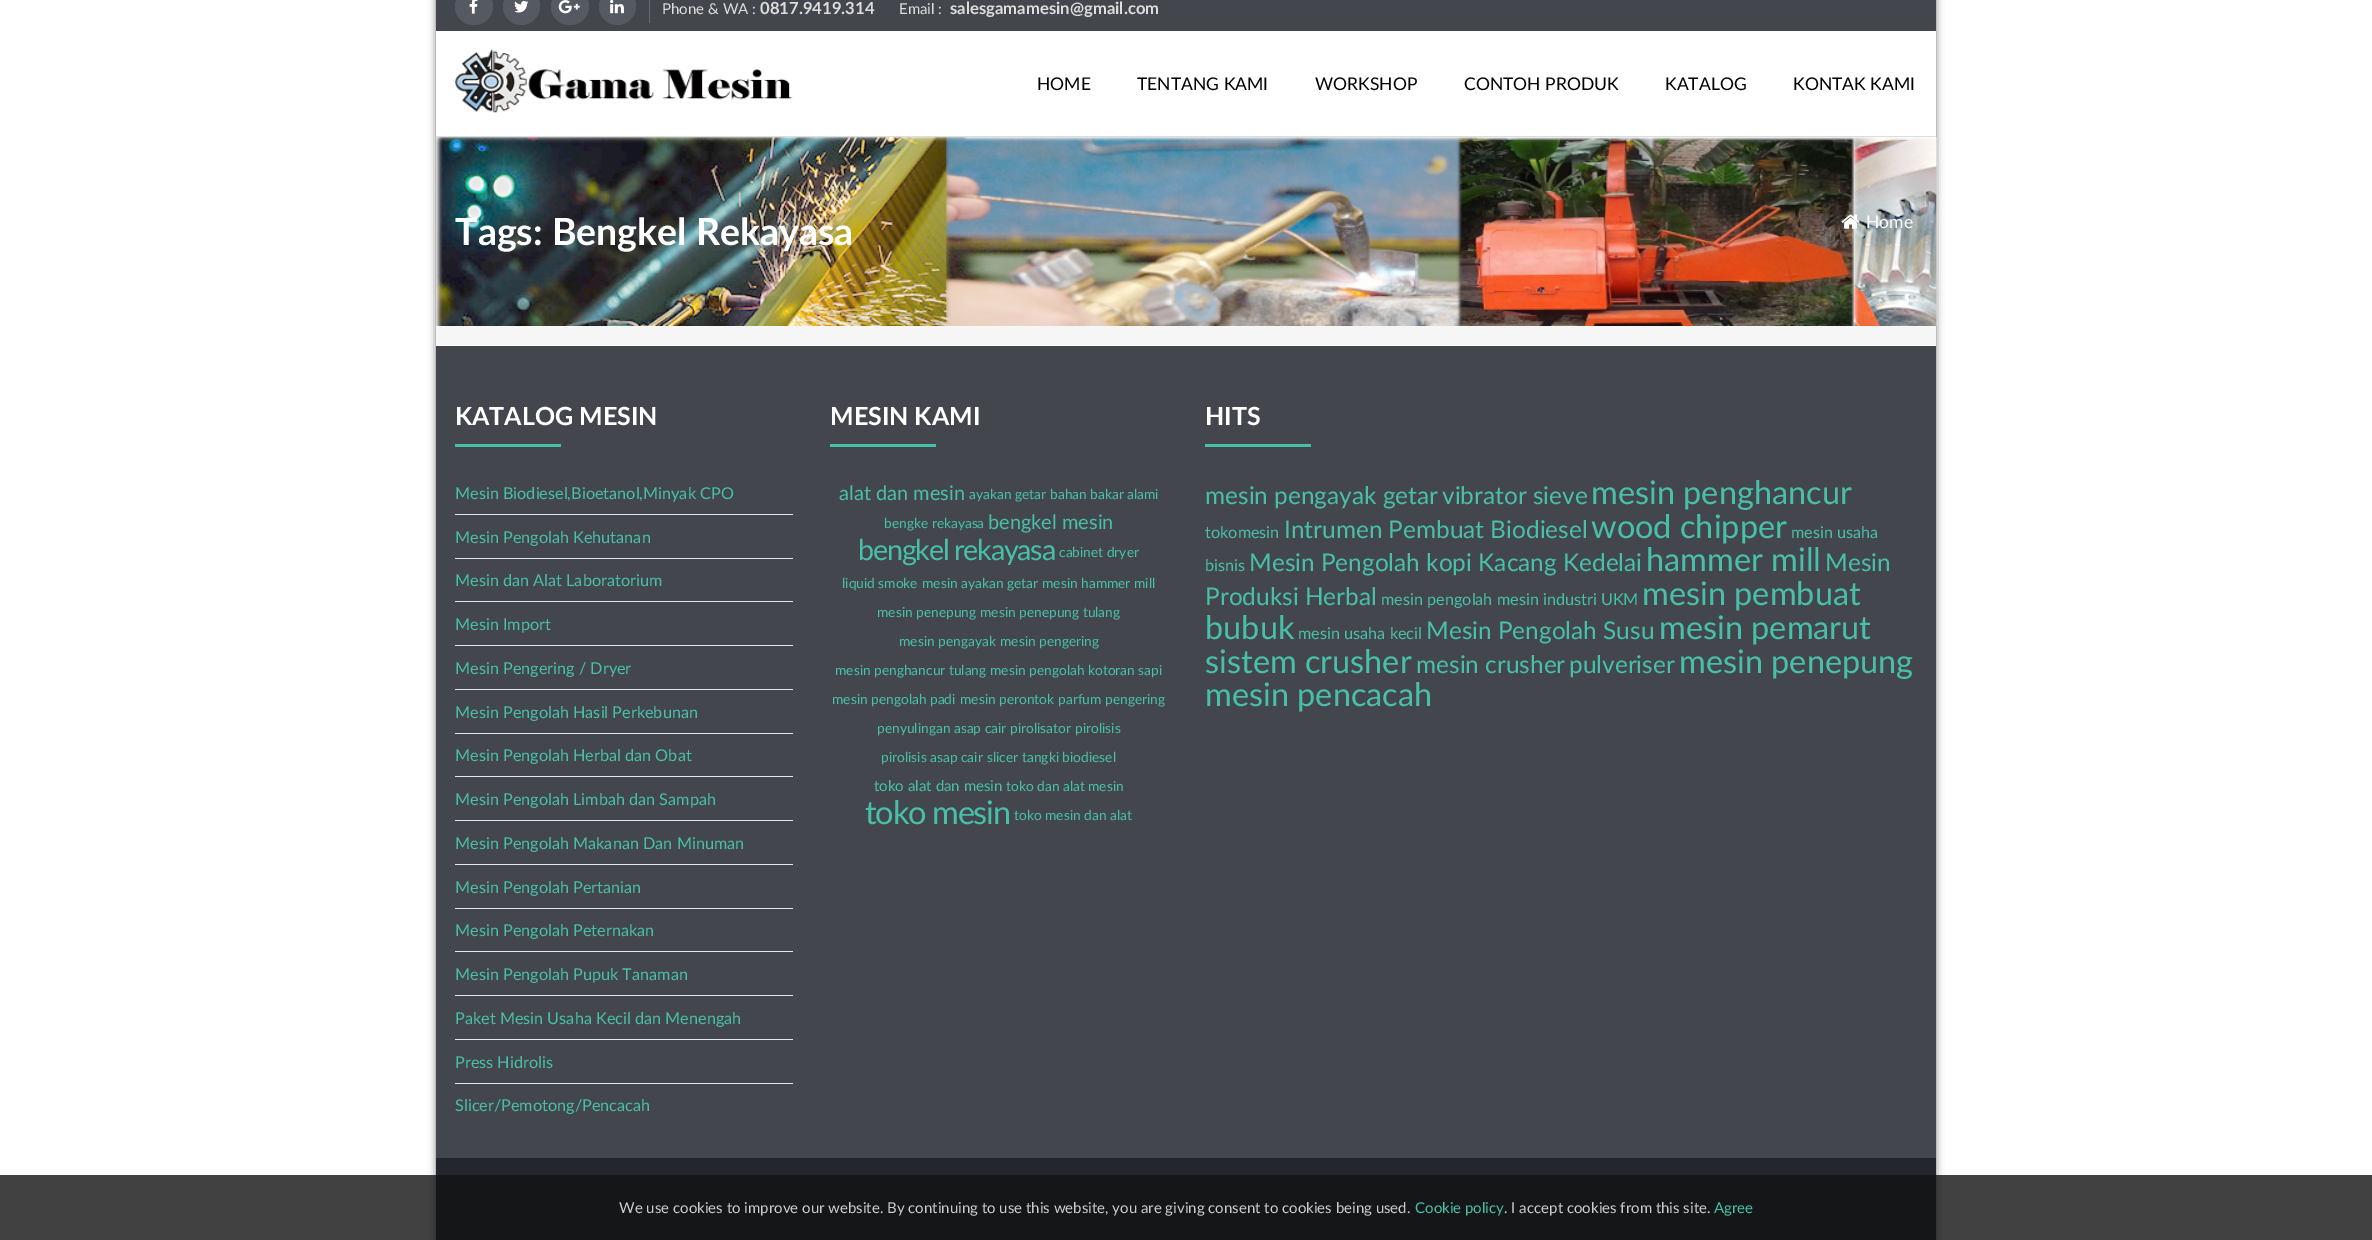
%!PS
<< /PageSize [2372 1240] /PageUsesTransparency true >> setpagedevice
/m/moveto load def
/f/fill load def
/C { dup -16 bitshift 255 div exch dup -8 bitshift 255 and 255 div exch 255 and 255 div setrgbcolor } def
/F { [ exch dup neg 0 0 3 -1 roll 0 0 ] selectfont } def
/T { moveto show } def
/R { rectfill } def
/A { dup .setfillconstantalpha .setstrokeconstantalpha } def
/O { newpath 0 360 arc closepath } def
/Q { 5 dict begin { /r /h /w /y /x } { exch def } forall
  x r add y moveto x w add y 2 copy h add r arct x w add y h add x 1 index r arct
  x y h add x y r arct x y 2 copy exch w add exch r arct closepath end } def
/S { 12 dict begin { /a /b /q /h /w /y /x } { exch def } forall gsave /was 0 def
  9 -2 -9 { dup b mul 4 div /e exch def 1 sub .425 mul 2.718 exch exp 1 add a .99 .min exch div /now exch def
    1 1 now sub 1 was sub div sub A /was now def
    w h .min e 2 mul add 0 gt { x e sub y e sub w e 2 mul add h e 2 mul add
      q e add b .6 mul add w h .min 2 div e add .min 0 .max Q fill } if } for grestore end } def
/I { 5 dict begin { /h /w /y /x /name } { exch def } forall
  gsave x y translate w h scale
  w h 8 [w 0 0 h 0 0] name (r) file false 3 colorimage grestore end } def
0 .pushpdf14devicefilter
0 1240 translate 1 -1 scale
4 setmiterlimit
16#FFFFFF C
0 0 2372 1240 R
16#777777 C
436 -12 1500 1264 0 4 1 S
16#F6F6F6 C
436 138 1500 207 R
16#43474D C
436 0 1500 31 R
16#555A62 C
455 -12 38 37 18.5 Q f
(1.rgb) 469 0 9 14 I
521.5 6.5 18.5 O f
(2.rgb) 514 0 15 13 I
551 -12 38 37 18.5 Q f
(3.rgb) 558 0 22 14 I
617.5 6.5 18.5 O f
(4.rgb) 610 0 14 14 I
16#666666 C
649 0 1 23 R
/Lato-Regular 15 F
16#DDDDDD C
(Phone & WA :) 662 14 T
/Lato-Bold 16.7 F
(0817.9419.314) 760 14 T
/Lato-Regular 15 F
(Email :) 899 14 T
/Lato-Bold 16.7 F
(salesgamamesin@gmail.com) 950 14 T
16#FFFFFF C
436 31 1500 107 R
16#DDDDDD C
436 136 1500 1 R
(5.rgb) 455 49 338 64 I
/Lato-Regular 17.5 F
16#000000 C
(HOME) 1037 90 T
(TENTANG KAMI) 1137 90 T
(WORKSHOP) 1315 90 T
(CONTOH PRODUK) 1464 90 T
(KATALOG) 1665 90 T
(KONTAK KAMI) 1793 90 T
(6.rgb) 436 137 1501 189 I
/Lato-Bold 37.5 F
16#FFFFFF C
(Tags: Bengkel Rekayasa) 455 245 T
(7.rgb) 1841 214 19 15 I
/Lato-Regular 17.5 F
(Home) 1866 228 T
436 345 1500 1 R
16#43474D C
436 346 1500 812 R
/Lato-Bold 25 F
16#FFFFFF C
(KATALOG MESIN) 455 425 T
16#47BFA9 C
455 444 106 3 R
/Lato-Regular 16.25 F
(Mesin Biodiesel,Bioetanol,Minyak CPO) 455 499 T
16#E5E5E5 C
455 514 338 1 R
16#47BFA9 C
(Mesin Pengolah Kehutanan) 455 543 T
16#E5E5E5 C
455 558 338 1 R
16#47BFA9 C
(Mesin dan Alat Laboratorium) 455 586 T
16#E5E5E5 C
455 601 338 1 R
16#47BFA9 C
(Mesin Import) 455 630 T
16#E5E5E5 C
455 645 338 1 R
16#47BFA9 C
(Mesin Pengering / Dryer) 455 674 T
16#E5E5E5 C
455 689 338 1 R
16#47BFA9 C
(Mesin Pengolah Hasil Perkebunan) 455 718 T
16#E5E5E5 C
455 733 338 1 R
16#47BFA9 C
(Mesin Pengolah Herbal dan Obat) 455 761 T
16#E5E5E5 C
455 776 338 1 R
16#47BFA9 C
(Mesin Pengolah Limbah dan Sampah) 455 805 T
16#E5E5E5 C
455 820 338 1 R
16#47BFA9 C
(Mesin Pengolah Makanan Dan Minuman) 455 849 T
16#E5E5E5 C
455 864 338 1 R
16#47BFA9 C
(Mesin Pengolah Pertanian) 455 893 T
16#E5E5E5 C
455 908 338 1 R
16#47BFA9 C
(Mesin Pengolah Peternakan) 455 936 T
16#E5E5E5 C
455 951 338 1 R
16#47BFA9 C
(Mesin Pengolah Pupuk Tanaman) 455 980 T
16#E5E5E5 C
455 995 338 1 R
16#47BFA9 C
(Paket Mesin Usaha Kecil dan Menengah) 455 1024 T
16#E5E5E5 C
455 1039 338 1 R
16#47BFA9 C
(Press Hidrolis) 455 1068 T
16#E5E5E5 C
455 1083 338 1 R
16#47BFA9 C
(Slicer/Pemotong/Pencacah) 455 1111 T
/Lato-Bold 25 F
16#FFFFFF C
(MESIN KAMI) 830 425 T
16#47BFA9 C
830 444 106 3 R
/Lato-Regular 20 F
(alat dan mesin) 839 500 T
/Lato-Regular 13.75 F
(ayakan getar) 969 499 T
(bahan bakar alami) 1050 499 T
(bengke rekayasa) 884 528 T
/Lato-Regular 20 F
(bengkel mesin) 988 529 T
/Lato-Regular 28.75 F
858 560 m -1.25 0 (bengkel rekayasa) ashow
/Lato-Regular 13.75 F
(cabinet dryer) 1059 557 T
(liquid smoke) 842 588 T
(mesin ayakan getar) 922 588 T
(mesin hammer mill) 1042 588 T
(mesin penepung) 877 617 T
(mesin penepung tulang) 980 617 T
(mesin pengayak) 899 646 T
(mesin pengering) 1000 646 T
(mesin penghancur tulang) 835 675 T
(mesin pengolah kotoran sapi) 990 675 T
(mesin pengolah padi) 832 704 T
(mesin perontok) 960 704 T
(parfum) 1058 704 T
(pengering) 1105 704 T
(penyulingan asap cair) 877 733 T
(pirolisator) 1010 733 T
(pirolisis) 1075 733 T
(pirolisis asap cair) 881 762 T
(slicer) 987 762 T
(tangki biodiesel) 1022 762 T
/Lato-Regular 15 F
(toko alat dan mesin) 874 791 T
/Lato-Regular 13.75 F
(toko dan alat mesin) 1006 791 T
/Lato-Regular 32.5 F
865 824 m -1.25 0 (toko mesin) ashow
/Lato-Regular 13.75 F
(toko mesin dan alat) 1014 820 T
/Lato-Bold 25 F
16#FFFFFF C
(HITS) 1205 425 T
16#47BFA9 C
1205 444 106 3 R
/Lato-Regular 24.4 F
(mesin pengayak getar) 1205 504 T
(vibrator sieve) 1442 504 T
/Lato-Regular 32.5 F
(mesin penghancur) 1591 504 T
/Lato-Regular 16.25 F
(tokomesin) 1205 538 T
/Lato-Regular 24.4 F
(Intrumen Pembuat Biodiesel) 1284 538 T
/Lato-Regular 32.5 F
(wood chipper) 1591 538 T
/Lato-Regular 16.25 F
(mesin usaha) 1791 538 T
(bisnis) 1205 571 T
/Lato-Regular 24.4 F
(Mesin Pengolah kopi Kacang Kedelai) 1249 571 T
/Lato-Regular 32.5 F
(hammer mill) 1646 571 T
/Lato-Regular 24.4 F
(Mesin) 1825 571 T
(Produksi Herbal) 1205 605 T
/Lato-Regular 16.25 F
(mesin pengolah mesin industri UKM) 1381 605 T
/Lato-Regular 32.5 F
(mesin pembuat) 1642 605 T
(bubuk) 1205 639 T
/Lato-Regular 16.25 F
(mesin usaha kecil) 1298 639 T
/Lato-Regular 24.4 F
(Mesin Pengolah Susu) 1426 639 T
/Lato-Regular 32.5 F
(mesin pemarut) 1659 639 T
(sistem crusher) 1205 673 T
/Lato-Regular 24.4 F
(mesin crusher) 1416 673 T
(pulveriser) 1569 673 T
/Lato-Regular 32.5 F
(mesin penepung) 1679 673 T
(mesin pencacah) 1205 706 T
16#23262D C
436 1158 1500 82 R
0.8 A
16#121212 C
0 1175 2372 65 R
/Lato-Regular 15 F
1 A
16#CCCCCC C
(We use cookies to improve our website. By continuing to use this website, you are giving consent to cookies being used.) 619 1213 T
16#47BFA9 C
(Cookie policy) 1415 1213 T
16#CCCCCC C
(. I accept cookies from this site.) 1504 1213 T
16#47BFA9 C
(Agree) 1714 1213 T
.poppdf14devicefilter showpage
